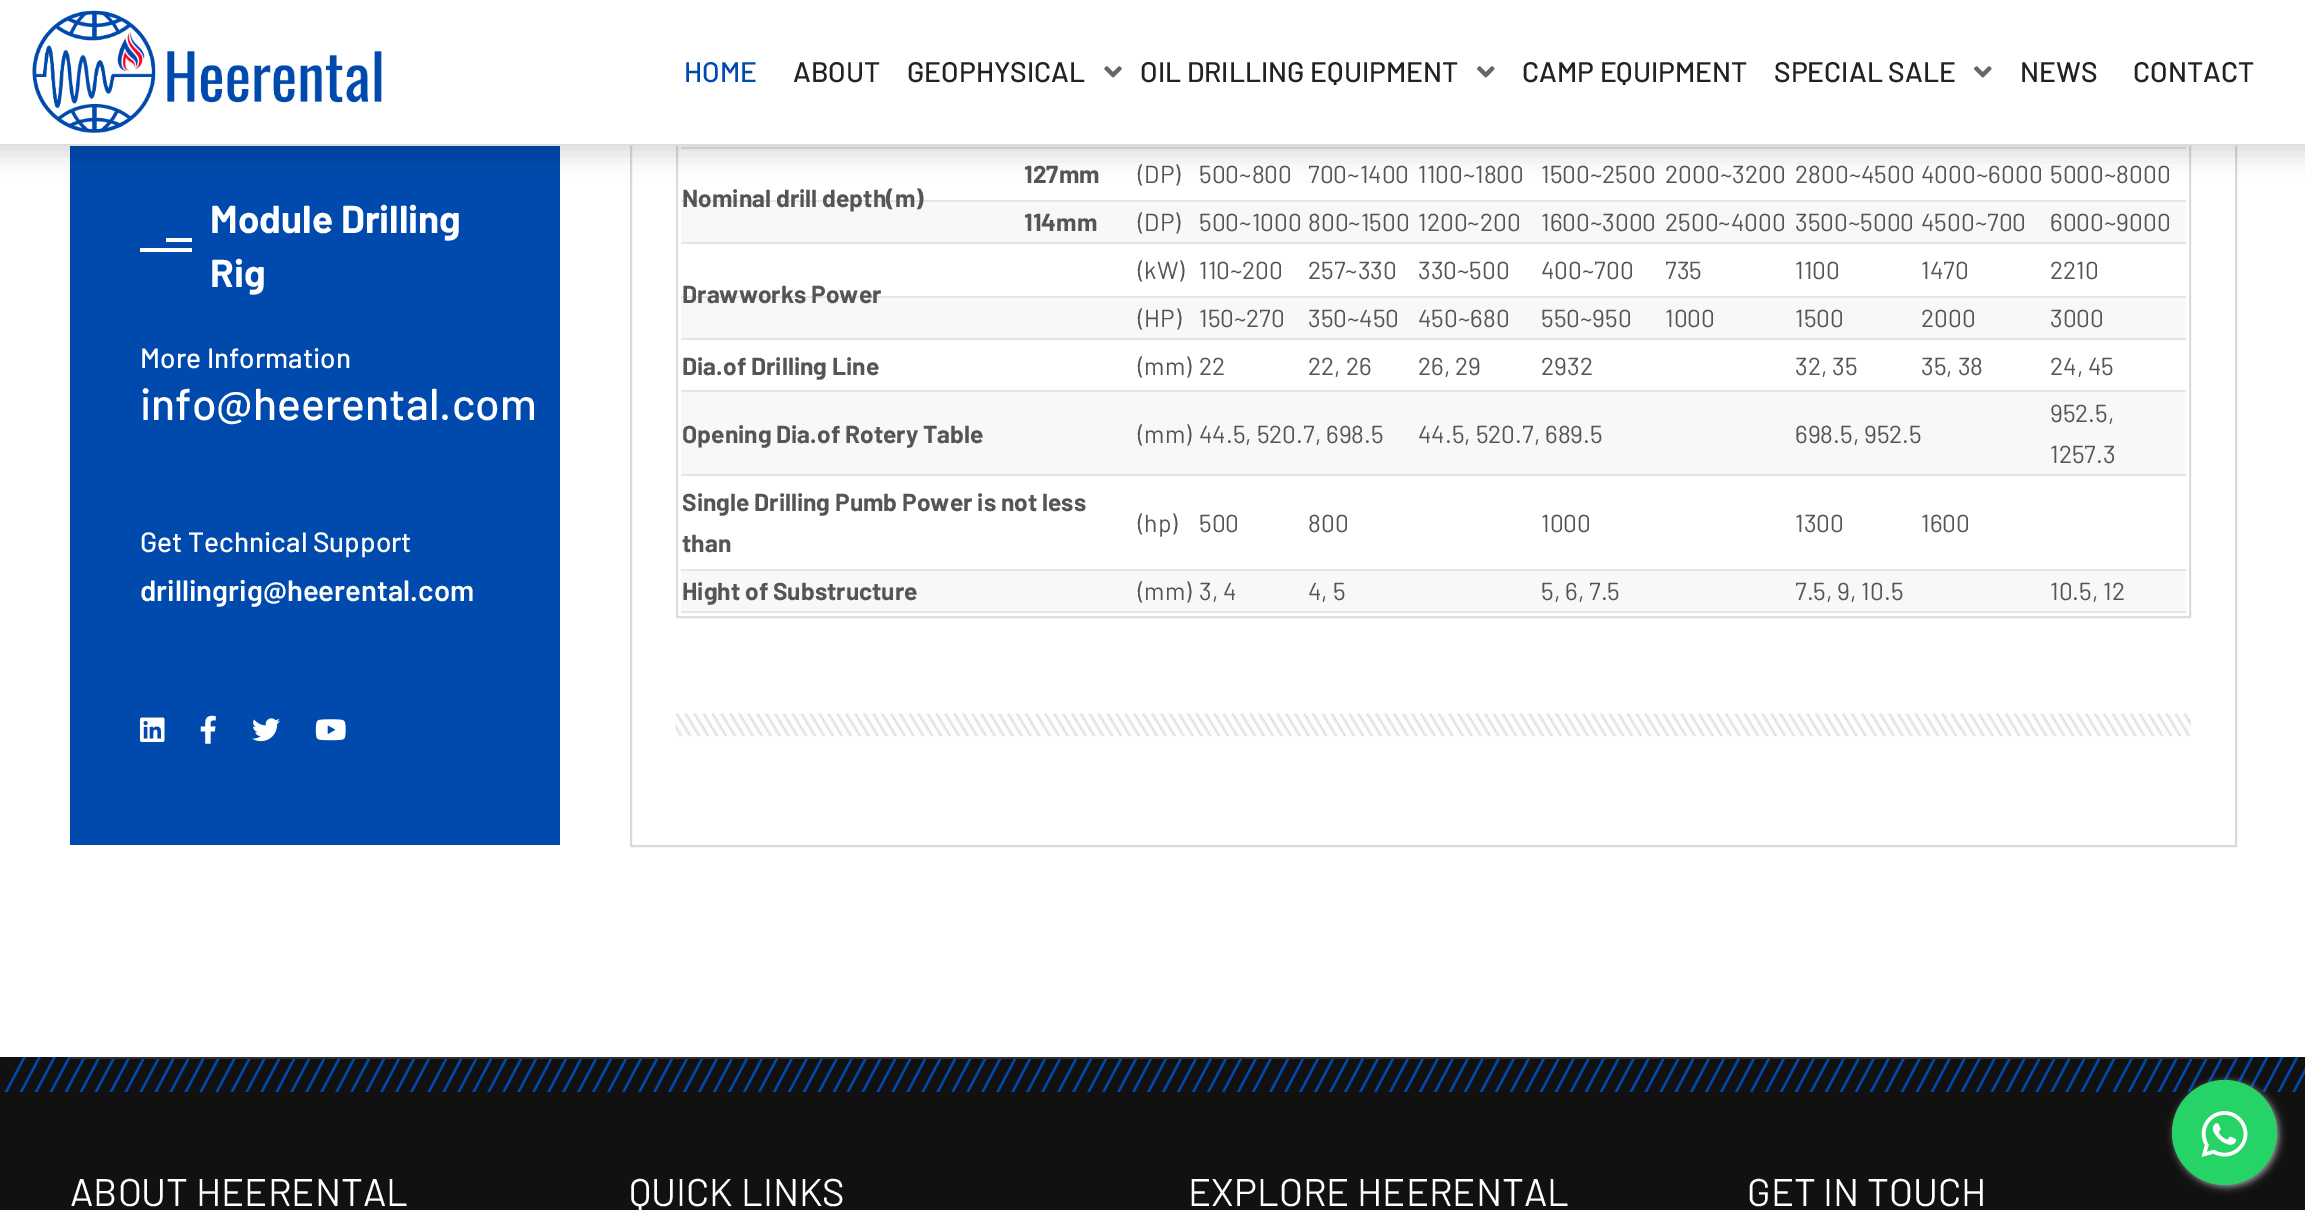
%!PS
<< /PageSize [2305 1210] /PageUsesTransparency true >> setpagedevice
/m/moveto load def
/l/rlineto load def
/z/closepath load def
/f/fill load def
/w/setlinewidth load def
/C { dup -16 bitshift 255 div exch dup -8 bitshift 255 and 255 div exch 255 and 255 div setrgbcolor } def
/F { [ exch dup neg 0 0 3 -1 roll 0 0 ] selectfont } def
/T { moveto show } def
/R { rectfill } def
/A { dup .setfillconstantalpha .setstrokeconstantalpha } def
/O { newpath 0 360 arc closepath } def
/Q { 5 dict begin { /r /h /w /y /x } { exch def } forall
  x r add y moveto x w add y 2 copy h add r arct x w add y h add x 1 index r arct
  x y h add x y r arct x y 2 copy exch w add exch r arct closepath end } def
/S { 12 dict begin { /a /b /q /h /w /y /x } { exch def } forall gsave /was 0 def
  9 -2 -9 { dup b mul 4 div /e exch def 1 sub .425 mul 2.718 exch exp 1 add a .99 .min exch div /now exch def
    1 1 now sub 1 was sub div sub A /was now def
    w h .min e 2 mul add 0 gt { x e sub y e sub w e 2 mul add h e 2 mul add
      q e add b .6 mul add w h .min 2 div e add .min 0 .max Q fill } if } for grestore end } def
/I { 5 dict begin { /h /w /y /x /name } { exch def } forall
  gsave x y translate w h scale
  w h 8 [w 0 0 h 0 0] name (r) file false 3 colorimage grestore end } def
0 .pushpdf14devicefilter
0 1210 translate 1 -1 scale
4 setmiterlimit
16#FFFFFF C
0 0 2305 1210 R
16#004AAD C
70 146 490 699 R
16#DED9D9 C
2 w
631 -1 1605 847 rectstroke
16#DCDCDC C
677 3 1513 614 rectstroke
16#F8F8F8 C
681 146 1505 1 R
16#E5E5E5 C
681 147 1505 2 R
16#000000 C
-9 -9 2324 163 0 13 .15 S
16#FFFFFF C
0 0 2305 144 R
16#DDDDDD C
0 144 2305 2 R
(1.rgb) 32 10 350 123 I
/Barlow-Medium 28.25 F
16#004AAD C
(HOME) 684 82 T
16#222222 C
(ABOUT) 793 82 T
(GEOPHYSICAL) 907 82 T
(2.rgb) 1104 66 18 12 I
(OIL DRILLING EQUIPMENT) 1140 82 T
(3.rgb) 1477 66 18 12 I
(CAMP EQUIPMENT) 1522 82 T
(SPECIAL SALE) 1774 82 T
(3.rgb) 1974 66 18 12 I
(NEWS) 2020 82 T
(CONTACT) 2133 82 T
/Barlow-Bold 38.75 F
16#FFFFFF C
(Module Drilling) 210 233 T
140 248 m 52 0 l 0 4 l -52 0 l z 166 238 m 26 0 l 0 4 l -26 0 l z f
(Rig) 210 287 T
/Barlow-Medium 28 F
(More Information) 140 368 T
/Barlow-Medium 44.5 F
(info@heerental.com) 140 420 T
/Barlow-Medium 28 F
(Get Technical Support) 140 552 T
/Barlow-SemiBold 29.25 F
(drillingrig@heerental.com) 140 601 T
(4.rgb) 140 717 25 25 I
(5.rgb) 200 715 16 29 I
(6.rgb) 252 718 28 24 I
(7.rgb) 315 719 31 22 I
/Barlow-Bold 24.5 F
16#555555 C
(127mm) 1024 183 T
/Barlow-Regular 24.5 F
(\(DP\)) 1138 183 T
(500~800) 1199 183 T
(700~1400) 1308 183 T
(1100~1800) 1418 183 T
(1500~2500) 1541 183 T
(2000~3200) 1665 183 T
(2800~4500) 1795 183 T
(4000~6000) 1921 183 T
(5000~8000) 2050 183 T
16#F8F8F8 C
681 202 1505 40 R
16#E5E5E5 C
681 200 1505 2 R
/Barlow-Bold 24.5 F
16#555555 C
(Nominal drill depth\(m\)) 682 207 T
16#E5E5E5 C
681 242 1505 2 R
16#555555 C
(114mm) 1024 231 T
/Barlow-Regular 24.5 F
(\(DP\)) 1138 231 T
(500~1000) 1199 231 T
(800~1500) 1308 231 T
(1200~200) 1418 231 T
(1600~3000) 1541 231 T
(2500~4000) 1665 231 T
(3500~5000) 1795 231 T
(4500~700) 1921 231 T
(6000~9000) 2050 231 T
(\(kW\)) 1138 279 T
(110~200) 1199 279 T
(257~330) 1308 279 T
(330~500) 1418 279 T
(400~700) 1541 279 T
(735) 1665 279 T
(1100) 1795 279 T
(1470) 1921 279 T
(2210) 2050 279 T
16#F8F8F8 C
681 298 1505 40 R
16#E5E5E5 C
681 296 1505 2 R
/Barlow-Bold 24.5 F
16#555555 C
(Drawworks Power) 682 303 T
16#E5E5E5 C
681 338 1505 2 R
/Barlow-Regular 24.5 F
16#555555 C
(\(HP\)) 1138 327 T
(150~270) 1199 327 T
(350~450) 1308 327 T
(450~680) 1418 327 T
(550~950) 1541 327 T
(1000) 1665 327 T
(1500) 1795 327 T
(2000) 1921 327 T
(3000) 2050 327 T
/Barlow-Bold 24.5 F
(Dia.of Drilling Line) 682 375 T
/Barlow-Regular 24.5 F
(\(mm\)) 1138 375 T
(22) 1199 375 T
(22, 26) 1308 375 T
(26, 29) 1418 375 T
(2932) 1541 375 T
(32, 35) 1795 375 T
(35, 38) 1921 375 T
(24, 45) 2050 375 T
16#F8F8F8 C
681 392 1505 82 R
16#E5E5E5 C
681 390 1505 2 R
681 474 1505 2 R
/Barlow-Bold 24.5 F
16#555555 C
(Opening Dia.of Rotery Table) 682 443 T
/Barlow-Regular 24.5 F
(\(mm\)) 1138 443 T
(44.5, 520.7, 698.5) 1199 443 T
(44.5, 520.7, 689.5) 1418 443 T
(698.5, 952.5) 1795 443 T
(952.5,) 2050 422 T
(1257.3) 2050 463 T
/Barlow-Bold 24.5 F
(Single Drilling Pumb Power is not less) 682 511 T
(than) 682 552 T
/Barlow-Regular 24.5 F
(\(hp\)) 1138 532 T
(500) 1199 532 T
(800) 1308 532 T
(1000) 1541 532 T
(1300) 1795 532 T
(1600) 1921 532 T
16#F8F8F8 C
681 571 1505 40 R
16#E5E5E5 C
681 569 1505 2 R
681 611 1505 2 R
/Barlow-Bold 24.5 F
16#555555 C
(Hight of Substructure) 682 600 T
/Barlow-Regular 24.5 F
(\(mm\)) 1138 600 T
(3, 4) 1199 600 T
(4, 5) 1308 600 T
(5, 6, 7.5) 1541 600 T
(7.5, 9, 10.5) 1795 600 T
(10.5, 12) 2050 600 T
(8.rgb) 675 713 1516 24 I
16#111111 C
0 1057 2305 153 R
(10.rgb) 4 1057 2301 35 I
16#999999 C
2174 1082 105 105 52.5 3.5 1 S
16#25D366 C
2224.5 1132.5 52.5 O f
(9.rgb) 2201 1111 47 46 I
16#303030 C
70 1057 2167 2 R
/Barlow-Regular 38.5 F
16#FFFFFF C
(ABOUT HEERENTAL) 70 1206 T
(QUICK LINKS) 629 1206 T
(EXPLORE HEERENTAL) 1188 1206 T
(GET IN TOUCH) 1747 1206 T
.poppdf14devicefilter showpage
